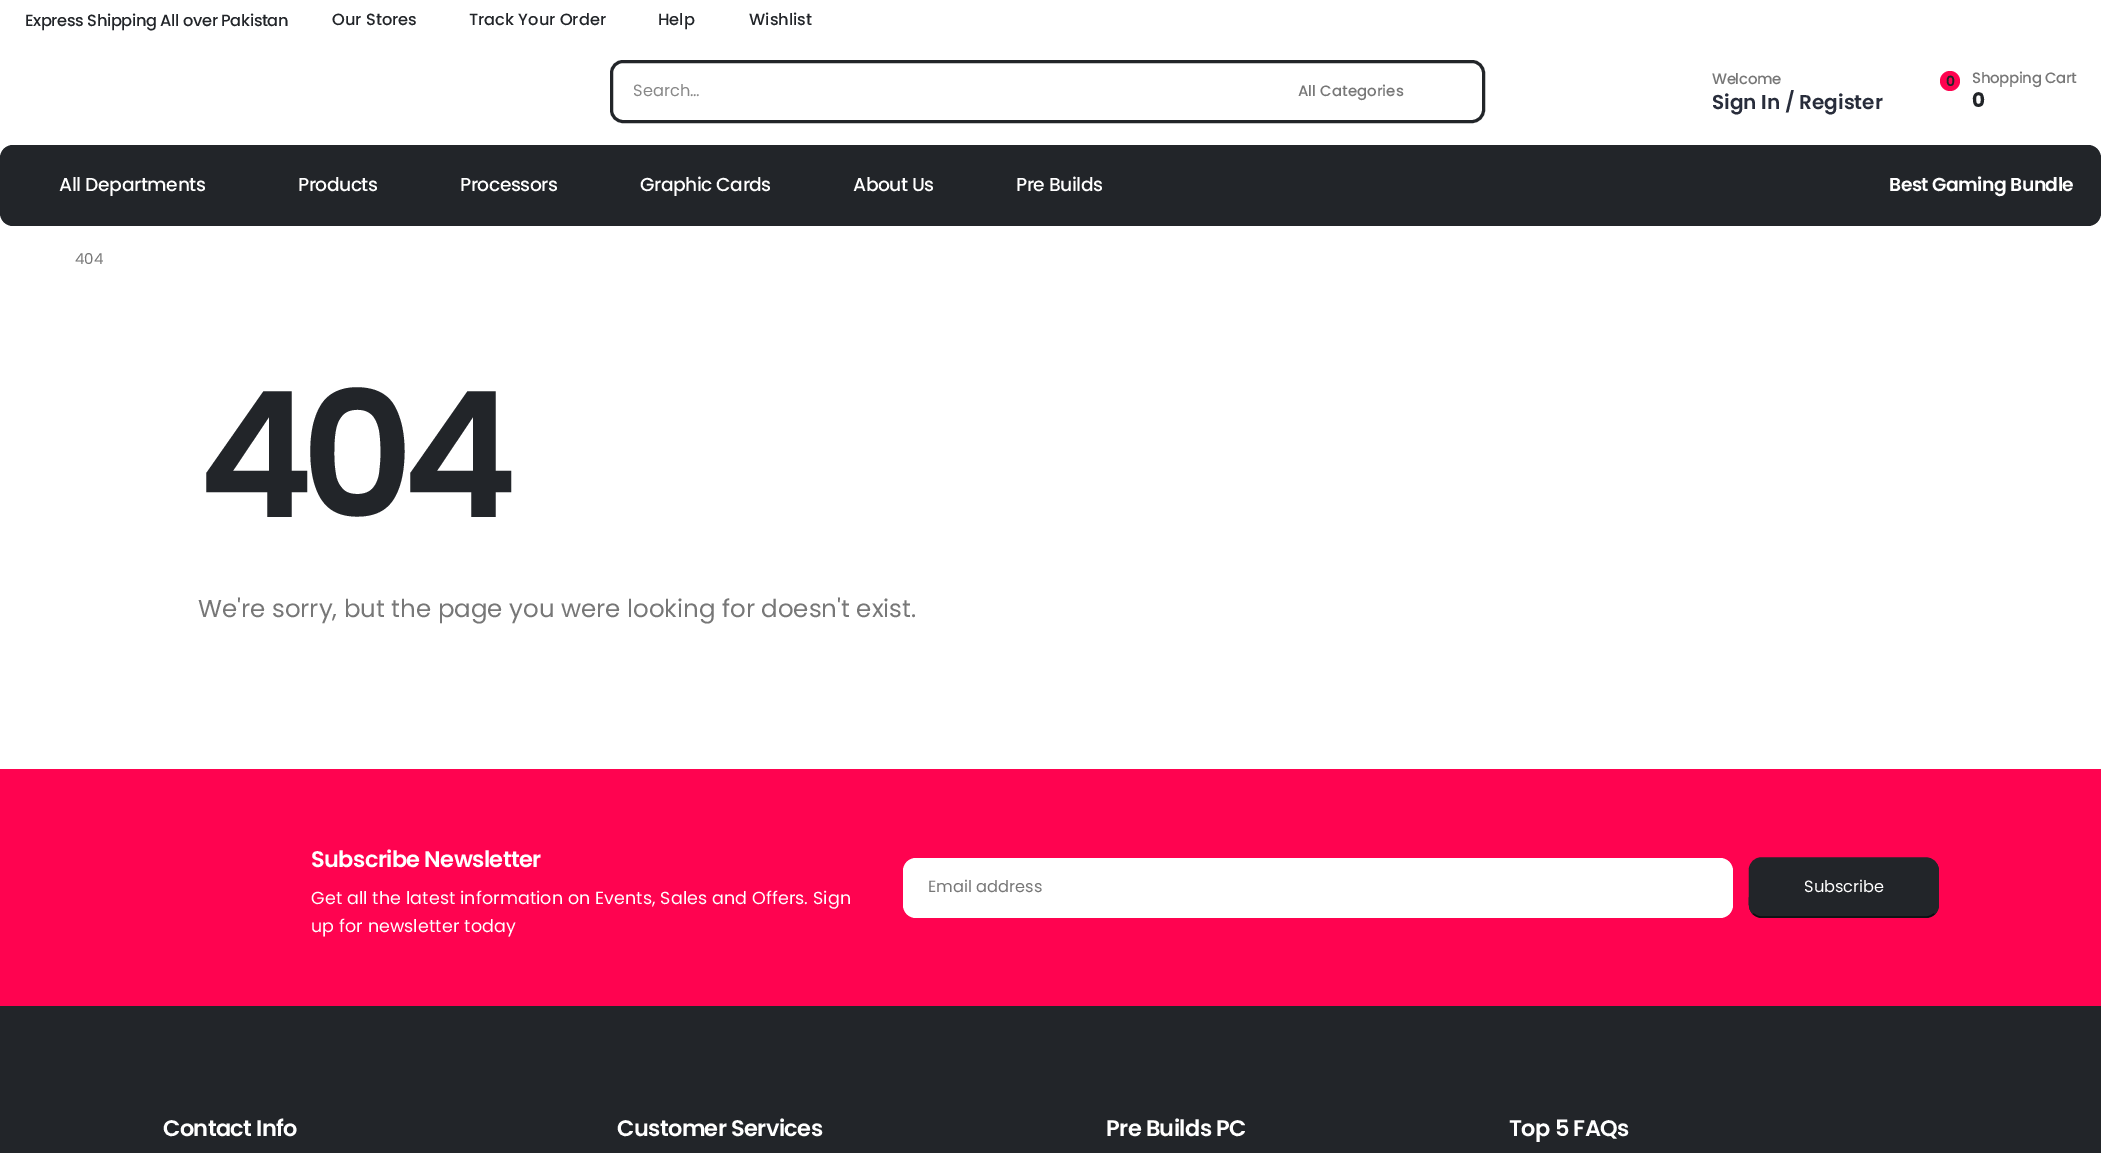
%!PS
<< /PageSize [2101 1153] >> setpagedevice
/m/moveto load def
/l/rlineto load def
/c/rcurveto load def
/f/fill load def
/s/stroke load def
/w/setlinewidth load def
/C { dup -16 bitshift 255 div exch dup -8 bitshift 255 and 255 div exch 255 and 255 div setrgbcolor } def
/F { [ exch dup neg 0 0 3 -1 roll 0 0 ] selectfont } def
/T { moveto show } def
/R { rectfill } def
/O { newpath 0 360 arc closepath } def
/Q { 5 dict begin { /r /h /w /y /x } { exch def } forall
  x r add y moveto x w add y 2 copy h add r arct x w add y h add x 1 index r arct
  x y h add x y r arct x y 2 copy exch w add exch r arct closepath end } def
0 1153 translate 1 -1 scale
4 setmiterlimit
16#FFFFFF C
0 0 2101 1153 R
/Poppins-Medium 16.25 F
16#222529 C
25 26 m -.4 0 (Express Shipping All over Pakistan) ashow
(Our Stores) 332 25 T
(Track Your Order) 469 25 T
(Help) 658 25 T
(Wishlist) 749 25 T
3 w
611.5 61.5 872 60 11.5 Q s
/Poppins-Regular 16.25 F
16#888888 C
(Search…) 633 96 T
/Poppins-Medium 15 F
16#777777 C
(All Categories) 1298 96 T
1712 84 m -.4 0 (Welcome) ashow
/Poppins-SemiBold 20 F
16#282D3B C
(Sign In / Register) 1712 109 T
16#FF0350 C
1950 81 10 O f
/Poppins-SemiBold 14 F
16#222529 C
(0) 1946 86 T
/Poppins-Medium 15 F
16#777777 C
1972 83 m -.4 0 (Shopping Cart) ashow
/Poppins-Bold 20 F
16#222529 C
(0) 1972 107 T
0 145 2101 81 13 Q f
/Poppins-Medium 18.75 F
16#FFFFFF C
59 191 m -.4 0 (All Departments) ashow
298 191 m -.5 0 (Products) ashow
460 191 m -.5 0 (Processors) ashow
640 191 m -.5 0 (Graphic Cards) ashow
853 191 m -.5 0 (About Us) ashow
1016 191 m -.5 0 (Pre Builds) ashow
/Poppins-SemiBold 18.75 F
1889 191 m -.5 0 (Best Gaming Bundle) ashow
/Poppins-Regular 15 F
16#777777 C
(404) 75 264 T
/Poppins-SemiBold 175 F
16#222529 C
198 517 m -12.5 0 (404) ashow
/Poppins-Regular 24.5 F
16#777777 C
(We're sorry, but the page you were looking for doesn't exist.) 198 617 T
16#FF0350 C
0 769 2101 237 R
/Poppins-SemiBold 22.5 F
16#FFFFFF C
311 867 m -.6 0 (Subscribe Newsletter) ashow
/Poppins-Regular 17.5 F
311 904 m .1 0 (Get all the latest information on Events, Sales and Offers. Sign) ashow
311 932 m .1 0 (up for newsletter today) ashow
903 858 830 60 13 Q f
/Poppins-Regular 16.25 F
16#777777 C
(Email address) 928 892 T
16#222529 C
1749 858 190 60 13 Q f
16#0B0C0E C
1.2 w
1934.5 913.5 m -2 2 -5 3.5 -8.5 3.5 c -165 0 l -3 0 -6 -1.5 -8 -3.5 c s
16#222529 C
1753 913.5 m -5.5 -5.5 -3.5 -13.5 -3.5 -20 c 0 -24.5 l .5 -6 5.5 -11 11.5 -11 c 165 0 l 6.5 0 11.5 5 12 11 c 0 24.5 l 0 6.5 2 14.5 -3.5 20 c s
16#FFFFFF C
(Subscribe) 1804 892 T
16#222529 C
0 1006 2101 147 R
/Poppins-SemiBold 22.5 F
16#FFFFFF C
163 1136 m -.6 0 (Contact Info) ashow
617 1136 m -.6 0 (Customer Services) ashow
1106 1136 m -.6 0 (Pre Builds PC) ashow
1509 1136 m -.6 0 (Top 5 FAQs) ashow
showpage
